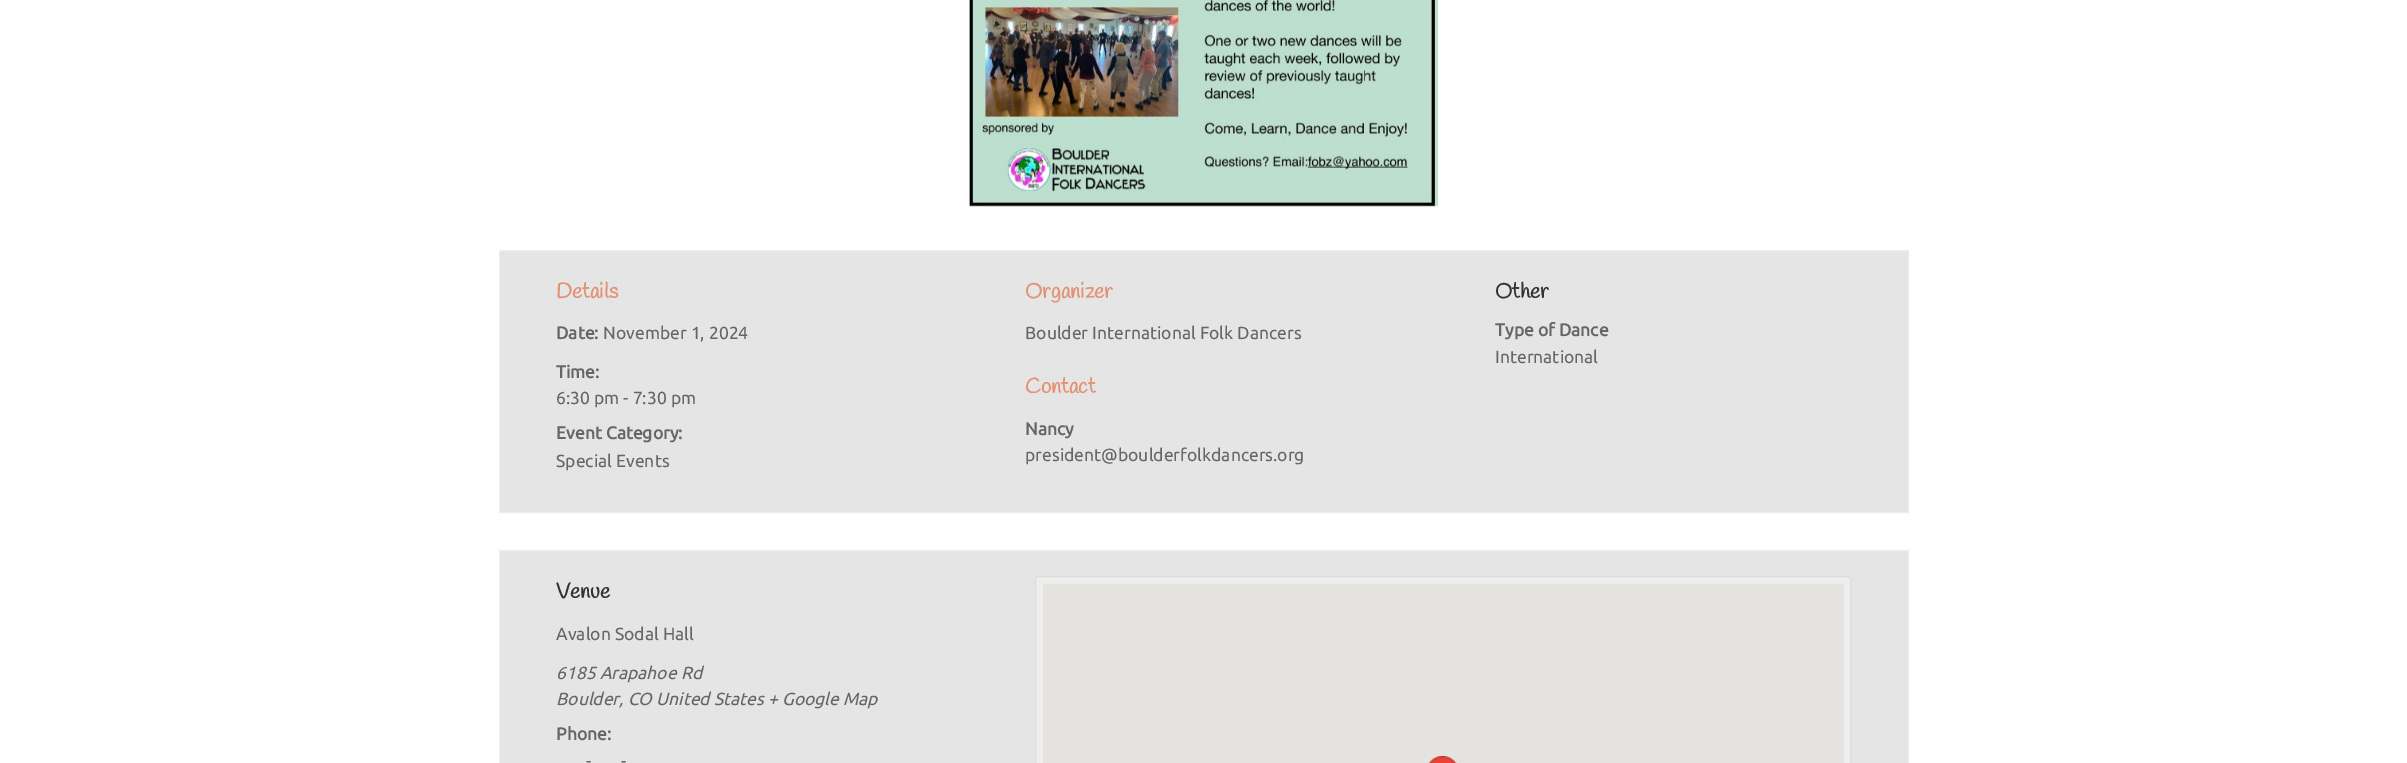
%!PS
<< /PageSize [2407 763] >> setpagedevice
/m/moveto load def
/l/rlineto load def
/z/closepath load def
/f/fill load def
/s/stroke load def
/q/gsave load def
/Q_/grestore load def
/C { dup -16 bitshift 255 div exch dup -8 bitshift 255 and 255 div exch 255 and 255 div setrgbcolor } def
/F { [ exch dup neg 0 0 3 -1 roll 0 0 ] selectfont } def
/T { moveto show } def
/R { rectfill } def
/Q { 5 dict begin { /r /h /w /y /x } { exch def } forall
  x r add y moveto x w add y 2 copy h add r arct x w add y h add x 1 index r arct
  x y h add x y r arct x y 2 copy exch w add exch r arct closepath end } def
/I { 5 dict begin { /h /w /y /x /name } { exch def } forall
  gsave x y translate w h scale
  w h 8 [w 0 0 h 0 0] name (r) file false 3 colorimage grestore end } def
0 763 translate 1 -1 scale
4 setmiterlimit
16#FFFFFF C
0 0 2407 763 R
(1.rgb) 969 0 470 207 I
16#E5E5E5 C
499.5 250.5 m 1409 0 l 0 262 l -1409 0 l z q f Q_
16#EEEEEE C
s
/Handlee-Bold 21.25 F
16#E49276 C
(Details) 556 298 T
/Ubuntu-Bold 17.5 F
16#666666 C
(Date:) 556 339 T
/Ubuntu-Regular 17.5 F
(November 1, 2024) 603 339 T
/Ubuntu-Bold 17.5 F
(Time:) 556 378 T
/Ubuntu-Regular 17.5 F
(6:30 pm - 7:30 pm) 556 404 T
/Ubuntu-Bold 17.5 F
(Event Category:) 556 439 T
/Ubuntu-Regular 17.5 F
(Special Events) 556 467 T
/Handlee-Bold 21.25 F
16#E49276 C
(Organizer) 1025 298 T
/Ubuntu-Regular 17.5 F
16#666666 C
(Boulder International Folk Dancers) 1025 339 T
/Handlee-Bold 21.25 F
16#E49276 C
(Contact) 1025 393 T
/Ubuntu-Bold 17.5 F
16#666666 C
(Nancy) 1025 435 T
/Ubuntu-Regular 17.5 F
(president@boulderfolkdancers.org) 1025 461 T
/Handlee-Bold 21.25 F
16#333333 C
(Other) 1495 298 T
/Ubuntu-Bold 17.5 F
16#666666 C
(Type of Dance) 1495 336 T
/Ubuntu-Regular 17.5 F
(International) 1495 363 T
16#E5E5E5 C
499.5 550.5 m 1409 0 l 0 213 l -1409 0 l z q f Q_
16#EEEEEE C
s
/Handlee-Bold 21.25 F
16#333333 C
(Venue) 556 598 T
/Ubuntu-Regular 17.5 F
16#666666 C
(Avalon Sodal Hall) 556 640 T
/Ubuntu-Italic 17.5 F
(6185 Arapahoe Rd) 556 679 T
(Boulder, CO United States + Google Map) 556 705 T
/Ubuntu-Bold 17.5 F
(Phone:) 556 740 T
/Ubuntu-Regular 17.5 F
(-) 586 767 T
(-) 621 767 T
16#EEEEEE C
1035.5 576.5 815 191 3.5 Q q f Q_
16#DDDDDD C
s
16#E5E3DF C
1043 584 801 179 R
(2.rgb) 1428 756 29 7 I
showpage
